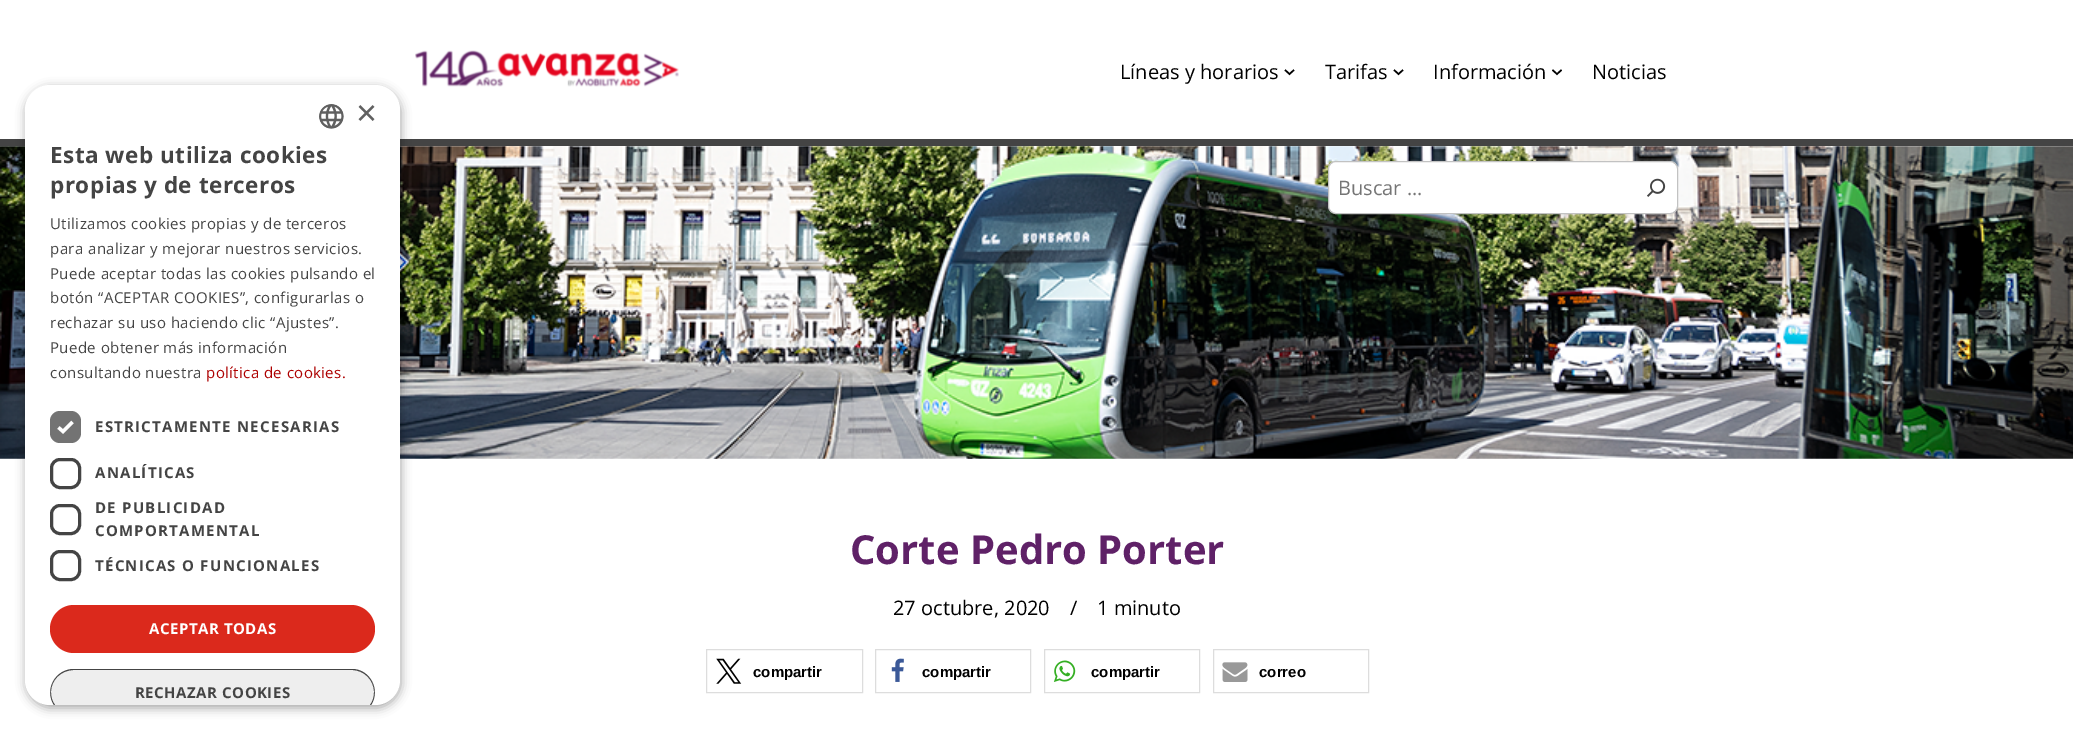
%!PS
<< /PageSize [2073 729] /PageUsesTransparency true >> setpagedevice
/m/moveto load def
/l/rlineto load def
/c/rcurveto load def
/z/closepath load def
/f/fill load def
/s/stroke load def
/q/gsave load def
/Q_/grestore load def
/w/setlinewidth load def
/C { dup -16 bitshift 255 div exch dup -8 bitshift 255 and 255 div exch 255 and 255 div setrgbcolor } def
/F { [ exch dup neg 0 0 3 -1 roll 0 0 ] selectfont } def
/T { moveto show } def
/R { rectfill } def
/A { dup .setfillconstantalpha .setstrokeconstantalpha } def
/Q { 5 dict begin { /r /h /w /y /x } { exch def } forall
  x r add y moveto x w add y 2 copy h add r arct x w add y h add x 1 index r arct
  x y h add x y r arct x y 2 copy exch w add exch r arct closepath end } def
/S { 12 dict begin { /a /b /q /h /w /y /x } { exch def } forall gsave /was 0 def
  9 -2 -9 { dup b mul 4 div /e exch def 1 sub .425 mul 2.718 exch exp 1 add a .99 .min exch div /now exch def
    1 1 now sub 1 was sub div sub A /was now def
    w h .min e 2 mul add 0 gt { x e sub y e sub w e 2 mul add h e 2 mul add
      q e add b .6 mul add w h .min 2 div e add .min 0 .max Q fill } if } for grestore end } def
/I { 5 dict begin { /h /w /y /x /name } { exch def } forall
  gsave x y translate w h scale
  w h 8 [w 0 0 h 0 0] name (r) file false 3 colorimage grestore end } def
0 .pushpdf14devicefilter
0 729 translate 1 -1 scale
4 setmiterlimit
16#FFFFFF C
0 0 2073 729 R
16#444444 C
0 139 2073 7 R
(2.rgb) 415 50 264 37 I
(4.rgb) 0 146 2073 313 I
16#000000 C
26 88 375 620 25 5 .35 S
16#FFFFFF C
25 85 375 620 25 Q f
(1.rgb) 319 104 25 25 I
/LiberationSans-Regular 36 F
16#606060 C
(×) 356 125 T
/OpenSans-Bold 22.5 F
16#444444 C
50 163 m .5 0 (Esta web utiliza cookies) ashow
50 193 m .5 0 (propias y de terceros) ashow
/OpenSans-Regular 15 F
50 229 m .4 0 (Utilizamos cookies propias y de terceros) ashow
50 254 m .4 0 (para analizar y mejorar nuestros servicios.) ashow
50 279 m .4 0 (Puede aceptar todas las cookies pulsando el) ashow
50 303 m .4 0 (botón “ACEPTAR COOKIES”, configurarlas o) ashow
50 328 m .4 0 (rechazar su uso haciendo clic “Ajustes”.) ashow
50 353 m .4 0 (Puede obtener más información) ashow
50 378 m .4 0 (consultando nuestra) ashow
16#AD0000 C
206 378 m .4 0 (política de cookies.) ashow
16#737373 C
50 411 31 32 10 Q f
16#FFFFFF C
3.3 w
58.5 427.5 m 4.5 4 l 9.5 -9.5 l s
/OpenSans-Bold 15 F
16#444444 C
95 432 m 1.25 0 (ESTRICTAMENTE NECESARIAS) ashow
3 w
51.5 459.5 28 28 8.5 Q s
95 478 m 1.25 0 (ANALÍTICAS) ashow
51.5 505.5 28 28 8.5 Q s
95 513 m 1.25 0 (DE PUBLICIDAD) ashow
95 536 m 1.25 0 (COMPORTAMENTAL) ashow
51.5 551.5 28 28 8.5 Q s
95 571 m 1.25 0 (TÉCNICAS O FUNCIONALES) ashow
16#DB291C C
50 605 325 48 24 Q f
16#FFFFFF C
149 634 m .5 0 (ACEPTAR TODAS) ashow
q
25 85 375 620 25 Q clip newpath
16#EEEEEE C
50 669 325 47 23.5 Q f
Q_
16#444444 C
74 669 m -19 0 -30 21 -20 36 c 1 0 l -3 -4 -4 -8 -4 -13 c 0 -12 10 -22 23 -22 c 278 0 l 12 0 22 10 22 22 c 0 5 -1 9 -4 13 c 1 0 l 10 -15 -1 -36 -19 -36 c z f
135 698 m .5 0 (RECHAZAR COOKIES) ashow
/OpenSans-Regular 20 F
16#000000 C
(Líneas y horarios) 1120 79 T
1.5 w
1285 70 m 4.5 4 l 4.5 -4 l s
(Tarifas) 1325 79 T
1394 70 m 4.5 4 l 4.5 -4 l s
(Información) 1433 79 T
1552.5 70 m 4.5 4 l 4.5 -4 l s
(Noticias) 1592 79 T
16#FFFFFF C
1328.5 161.5 349 52 7.5 Q q f Q_
16#C2C2C2 C
1 w
s
16#757575 C
(Buscar ...) 1338 195 T
(3.rgb) 1647 178 19 19 I
/OpenSans-Bold 40 F
16#5F2167 C
(Corte Pedro Porter) 850 564 T
/OpenSans-Regular 20 F
16#000000 C
(27 octubre, 2020) 893 615 T
(/) 1070 615 T
(1 minuto) 1097 615 T
16#DDDDDD C
706.5 649.5 156 43 rectstroke
(5.rgb) 716 658 26 26 I
/LiberationSans-Bold 15 F
16#000000 C
(compartir) 753 677 T
16#DDDDDD C
875.5 649.5 155 43 rectstroke
(6.rgb) 891 658 13 24 I
16#000000 C
(compartir) 922 677 T
16#DDDDDD C
1044.5 649.5 155 43 rectstroke
(7.rgb) 1053 660 23 22 I
16#000000 C
(compartir) 1091 677 T
16#DDDDDD C
1213.5 649.5 155 43 rectstroke
(8.rgb) 1222 662 26 20 I
16#000000 C
(correo) 1259 677 T
.poppdf14devicefilter showpage
